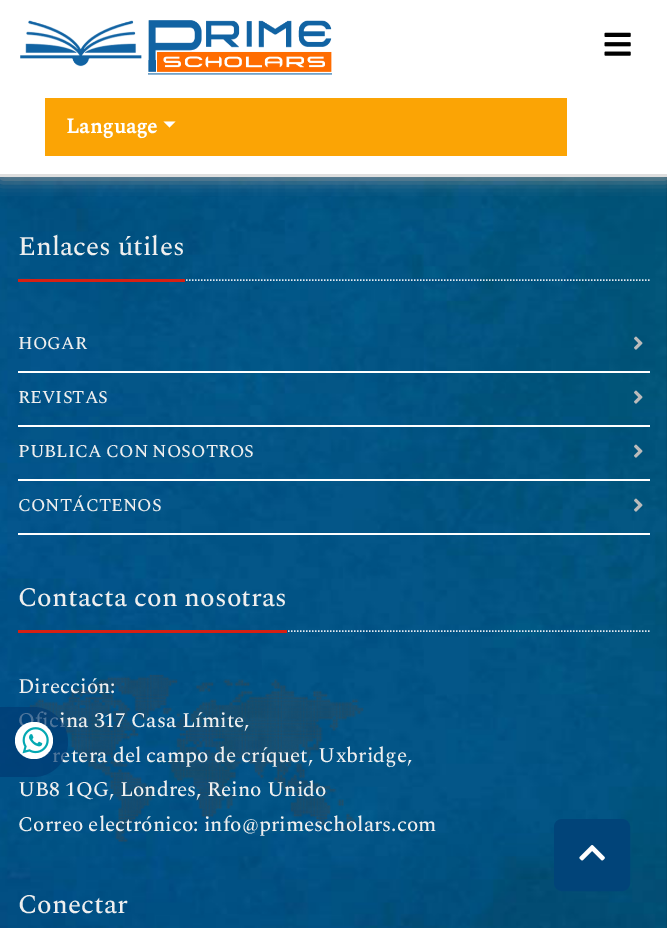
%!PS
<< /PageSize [667 928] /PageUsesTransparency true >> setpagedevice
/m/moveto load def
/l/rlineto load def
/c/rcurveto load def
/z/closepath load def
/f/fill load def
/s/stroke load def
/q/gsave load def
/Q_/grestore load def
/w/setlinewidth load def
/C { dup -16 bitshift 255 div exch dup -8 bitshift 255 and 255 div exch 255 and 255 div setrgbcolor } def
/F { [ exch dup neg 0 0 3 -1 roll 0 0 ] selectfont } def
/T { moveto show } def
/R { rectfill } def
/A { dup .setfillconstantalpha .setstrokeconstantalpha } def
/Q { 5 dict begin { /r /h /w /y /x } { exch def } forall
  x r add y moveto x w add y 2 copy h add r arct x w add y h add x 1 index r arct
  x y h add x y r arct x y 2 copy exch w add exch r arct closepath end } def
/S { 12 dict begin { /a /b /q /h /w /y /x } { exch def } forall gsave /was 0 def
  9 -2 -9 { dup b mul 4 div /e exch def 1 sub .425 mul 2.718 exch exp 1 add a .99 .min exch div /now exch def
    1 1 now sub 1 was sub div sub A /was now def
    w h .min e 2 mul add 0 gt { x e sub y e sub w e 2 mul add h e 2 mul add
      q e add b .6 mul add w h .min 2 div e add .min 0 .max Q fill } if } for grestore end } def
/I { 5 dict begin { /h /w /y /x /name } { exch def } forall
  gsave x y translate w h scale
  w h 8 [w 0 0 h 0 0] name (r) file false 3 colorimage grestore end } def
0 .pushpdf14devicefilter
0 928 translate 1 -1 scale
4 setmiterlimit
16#FFFFFF C
0 0 667 928 R
(4.rgb) 0 177 667 751 I
16#999999 C
0 2 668 177 0 7.5 1 S
16#FFFFFF C
0 0 667 174 R
16#DEDEDE C
0 174 667 3 R
(1.rgb) 20 20 312 55 I
(2.rgb) 604 32 27 24 I
16#FBA405 C
45 98 522 58 R
/Spectral-Bold 21 F
16#FFFFFF C
(Language) 66 133 T
163.5 121.5 m 12 0 l -6 6 l z f
(9.rgb) 29 674 335 168 I
/Spectral-Medium 21 F
16#EEEEEE C
(Oficina 317 Casa Límite,) 18 727 T
(retera del campo de críquet, Uxbridge,) 52 762 T
0.67 A
16#003972 C
-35 707 m 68 0 l 19.5 0 35 15.5 35 35 c 0 19.5 -15.5 35 -35 35 c -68 0 l z f
1 A
16#FFFFFF C
15 722 38 37 18.5 Q f
(3.rgb) 22 727 27 27 I
16#E4E9F0 C
1.5 w
[1.5 1.5] 0 setdash
18 280 m 631.5 0 l s
16#D72013 C
18 279 167 3 R
/Spectral-Medium 27 F
16#EEEEEE C
(Enlaces útiles) 18 255 T
16#FFFFFF C
18 371 632 2 R
/Spectral-Medium 18 F
16#EEEEEE C
(HOGAR) 18 349 T
(5.rgb) 634 336 9 14 I
16#FFFFFF C
18 425 632 2 R
16#EEEEEE C
(REVISTAS) 18 403 T
(6.rgb) 634 390 9 14 I
16#FFFFFF C
18 479 632 2 R
16#EEEEEE C
(PUBLICA CON NOSOTROS) 18 457 T
(7.rgb) 634 444 9 14 I
16#FFFFFF C
18 533 632 2 R
16#EEEEEE C
(CONTÁCTENOS) 18 511 T
(8.rgb) 634 498 9 14 I
16#E4E9F0 C
18 631 m 631.5 0 l s
16#D72013 C
18 630 269 3 R
/Spectral-Medium 27 F
16#EEEEEE C
(Contacta con nosotras) 18 606 T
/Spectral-Medium 21 F
(Dirección:) 18 693 T
(UB8 1QG, Londres, Reino Unido) 18 796 T
(Correo electrónico: info@primescholars.com) 18 831 T
/Spectral-Medium 27 F
(Conectar) 18 913 T
16#014479 C
555 820 74 70 7 Q q f Q_
2 w
[] 0 setdash
s
(10.rgb) 579 845 26 16 I
.poppdf14devicefilter showpage
